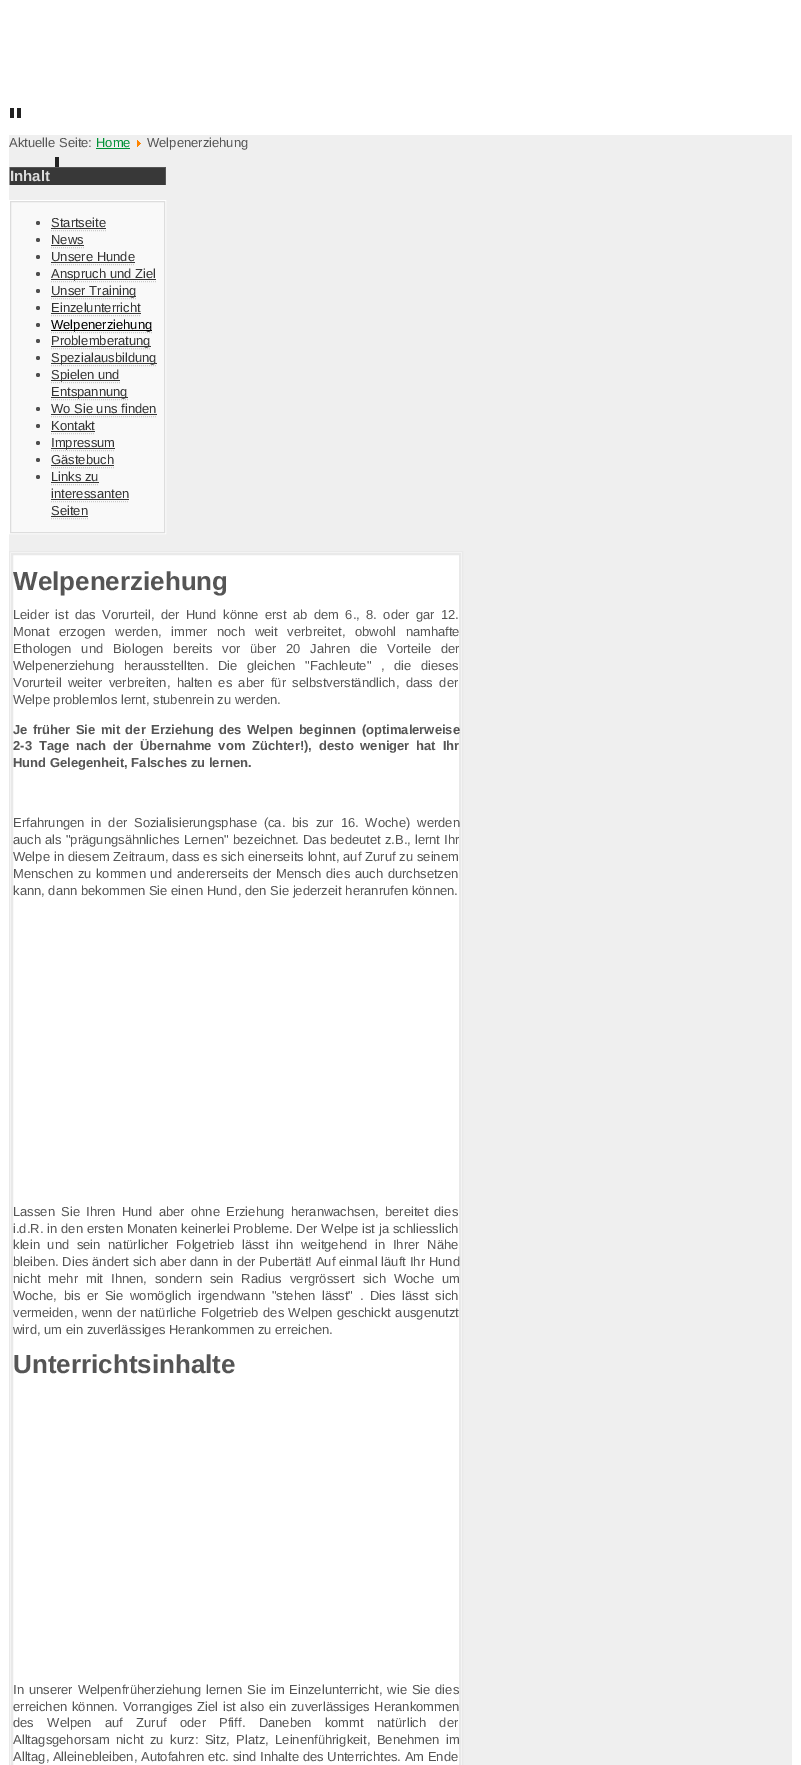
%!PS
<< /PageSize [801 1765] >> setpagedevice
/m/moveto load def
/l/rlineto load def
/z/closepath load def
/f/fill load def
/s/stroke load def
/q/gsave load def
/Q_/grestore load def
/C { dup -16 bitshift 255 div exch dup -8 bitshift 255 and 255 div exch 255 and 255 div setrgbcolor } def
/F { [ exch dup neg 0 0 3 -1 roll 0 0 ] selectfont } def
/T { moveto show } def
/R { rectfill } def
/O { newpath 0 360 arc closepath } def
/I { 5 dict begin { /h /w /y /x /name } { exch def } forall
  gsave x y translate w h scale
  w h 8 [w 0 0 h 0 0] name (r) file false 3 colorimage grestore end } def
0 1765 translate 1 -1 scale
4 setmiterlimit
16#FFFFFF C
0 0 801 1765 R
16#EFEFEF C
9 135 783 1630 R
16#222222 C
10 108 4 10 R
17 108 4 10 R
/LiberationSans-Regular 13 F
16#555555 C
(Aktuelle Seite:) 9 147 T
16#009136 C
(Home) 96 147 T
96 148 34 1 R
(1.rgb) 137 140 4 7 I
16#555555 C
(Welpenerziehung) 147 147 T
16#383838 C
10 168 155 17 R
16#555555 C
9 167 157 1 R
165 167 1 18 R
16#999999 C
9 167 1 18 R
16#222222 C
55 157 4 10 R
/LiberationSans-Bold 15 F
16#DDDDDD C
(Inhalt) 10 181 T
16#FFFFFF C
9.5 200.5 156 333 rectstroke
16#F9F9F9 C
10.5 201.5 m 154 0 l 0 331 l -154 0 l z q f Q_
16#DDDDDD C
s
16#505050 C
38 223 2 O f
/LiberationSans-Regular 13 F
16#333333 C
(Startseite) 51 227 T
16#CCCCCC C
[1 1] 0 setdash
51 230.5 m 55 0 l s
16#333333 C
51 228 55 1 R
16#505050 C
38 240 2 O f
16#333333 C
(News) 51 244 T
16#CCCCCC C
51 247.5 m 33 0 l s
16#333333 C
51 245 33 1 R
16#505050 C
38 257 2 O f
16#333333 C
(Unsere Hunde) 51 261 T
16#CCCCCC C
51 264.5 m 84 0 l s
16#333333 C
51 262 84 1 R
16#505050 C
38 274 2 O f
16#333333 C
51 279 105 1 R
(Anspruch und Ziel) 51 278 T
16#CCCCCC C
51 281.5 m 105 0 l s
16#505050 C
38 291 2 O f
16#333333 C
51 296 85 1 R
(Unser Training) 51 295 T
16#CCCCCC C
51 298.5 m 85 0 l s
16#505050 C
38 308 2 O f
16#333333 C
(Einzelunterricht) 51 312 T
16#CCCCCC C
51 315.5 m 90 0 l s
16#333333 C
51 313 90 1 R
16#505050 C
38 325 2 O f
16#000000 C
51 330 101 1 R
(Welpenerziehung) 51 329 T
16#CCCCCC C
51 332.5 m 101 0 l s
16#505050 C
38 341 2 O f
16#333333 C
51 346 100 1 R
(Problemberatung) 51 345 T
16#CCCCCC C
51 348.5 m 100 0 l s
16#505050 C
38 358 2 O f
16#333333 C
51 363 106 1 R
(Spezialausbildung) 51 362 T
16#CCCCCC C
51 365.5 m 106 0 l s
16#505050 C
38 375 2 O f
16#333333 C
51 380 69 1 R
(Spielen und) 51 379 T
16#CCCCCC C
51 382.5 m 69 0 l s
16#333333 C
51 397 77 1 R
(Entspannung) 51 396 T
16#CCCCCC C
51 399.5 m 77 0 l s
16#505050 C
38 409 2 O f
16#333333 C
(Wo Sie uns finden) 51 413 T
16#CCCCCC C
51 416.5 m 106 0 l s
16#333333 C
51 414 106 1 R
16#505050 C
38 426 2 O f
16#333333 C
(Kontakt) 51 430 T
16#CCCCCC C
51 433.5 m 44 0 l s
16#333333 C
51 431 44 1 R
16#505050 C
38 443 2 O f
16#333333 C
51 448 64 1 R
(Impressum) 51 447 T
16#CCCCCC C
51 450.5 m 64 0 l s
16#505050 C
38 460 2 O f
16#333333 C
(Gästebuch) 51 464 T
16#CCCCCC C
51 467.5 m 63 0 l s
16#333333 C
51 465 63 1 R
16#505050 C
38 477 2 O f
16#333333 C
(Links zu) 51 481 T
16#CCCCCC C
51 484.5 m 48 0 l s
16#333333 C
51 482 48 1 R
(interessanten) 51 498 T
16#CCCCCC C
51 501.5 m 78 0 l s
16#333333 C
51 499 78 1 R
(Seiten) 51 515 T
16#CCCCCC C
51 518.5 m 37 0 l s
16#333333 C
51 516 37 1 R
16#F9F9F9 C
9.5 551.5 m 453 0 l 0 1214 l -453 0 l z q f Q_
16#E9E9E9 C
[] 0 setdash
s
11.5 553.5 449 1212 rectstroke
16#FFFFFF C
12.5 554.5 m 447 0 l 0 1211 l -447 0 l z q f Q_
16#E9E9E9 C
s
/LiberationSans-Bold 26 F
16#555555 C
(Welpenerziehung) 13 590 T
/LiberationSans-Regular 13 F
13 619 m 2.75 0 32 (Leider ist das Vorurteil, der Hund könne erst ab dem 6., 8. oder gar 12.) widthshow
13 636 m 6 0 32 (Monat erzogen werden, immer noch weit verbreitet, obwohl namhafte) widthshow
13 653 m 6.25 0 32 (Ethologen und Biologen bereits vor über 20 Jahren die Vorteile der) widthshow
13 670 m 6 0 32 (Welpenerziehung herausstellten. Die gleichen "Fachleute" , die dieses) widthshow
13 687 m 2.75 0 32 (Vorurteil weiter verbreiten, halten es aber für selbstverständlich, dass der) widthshow
(Welpe problemlos lernt, stubenrein zu werden.) 13 704 T
/LiberationSans-Bold 13 F
13 734 m 1.75 0 32 (Je früher Sie mit der Erziehung des Welpen beginnen \(optimalerweise) widthshow
13 750 m 3.25 0 32 (2-3 Tage nach der Übernahme vom Züchter!\), desto weniger hat Ihr) widthshow
(Hund Gelegenheit, Falsches zu lernen.) 13 767 T
/LiberationSans-Regular 13 F
13 827 m 3.25 0 32 (Erfahrungen in der Sozialisierungsphase \(ca. bis zur 16. Woche\) werden) widthshow
13 844 m .4 0 32 (auch als "prägungsähnliches Lernen" bezeichnet. Das bedeutet z.B., lernt Ihr) widthshow
13 861 m .25 0 32 (Welpe in diesem Zeitraum, dass es sich einerseits lohnt, auf Zuruf zu seinem) widthshow
13 878 m 1 0 32 (Menschen zu kommen und andererseits der Mensch dies auch durchsetzen) widthshow
(kann, dann bekommen Sie einen Hund, den Sie jederzeit heranrufen können.) 13 895 T
13 1216 m 2.5 0 32 (Lassen Sie Ihren Hund aber ohne Erziehung heranwachsen, bereitet dies) widthshow
13 1233 m .25 0 32 (i.d.R. in den ersten Monaten keinerlei Probleme. Der Welpe ist ja schliesslich) widthshow
13 1249 m 4 0 32 (klein und sein natürlicher Folgetrieb lässt ihn weitgehend in Ihrer Nähe) widthshow
13 1266 m .25 0 32 (bleiben. Dies ändert sich aber dann in der Pubertät! Auf einmal läuft Ihr Hund) widthshow
13 1283 m 4.25 0 32 (nicht mehr mit Ihnen, sondern sein Radius vergrössert sich Woche um) widthshow
13 1300 m 2.9 0 32 (Woche, bis er Sie womöglich irgendwann "stehen lässt" . Dies lässt sich) widthshow
13 1317 m .75 0 32 (vermeiden, wenn der natürliche Folgetrieb des Welpen geschickt ausgenutzt) widthshow
(wird, um ein zuverlässiges Herankommen zu erreichen.) 13 1334 T
/LiberationSans-Bold 26 F
(Unterrichtsinhalte) 13 1373 T
/LiberationSans-Regular 13 F
13 1694 m 1.25 0 32 (In unserer Welpenfrüherziehung lernen Sie im Einzelunterricht, wie Sie dies) widthshow
13 1711 m 1 0 32 (erreichen können. Vorrangiges Ziel ist also ein zuverlässiges Herankommen) widthshow
13 1727 m 9.75 0 32 (des Welpen auf Zuruf oder Pfiff. Daneben kommt natürlich der) widthshow
13 1744 m 2.75 0 32 (Alltagsgehorsam nicht zu kurz: Sitz, Platz, Leinenführigkeit, Benehmen im) widthshow
(Alltag, Alleinebleiben, Autofahren etc. sind Inhalte des Unterrichtes. Am Ende) 13 1761 T
showpage
